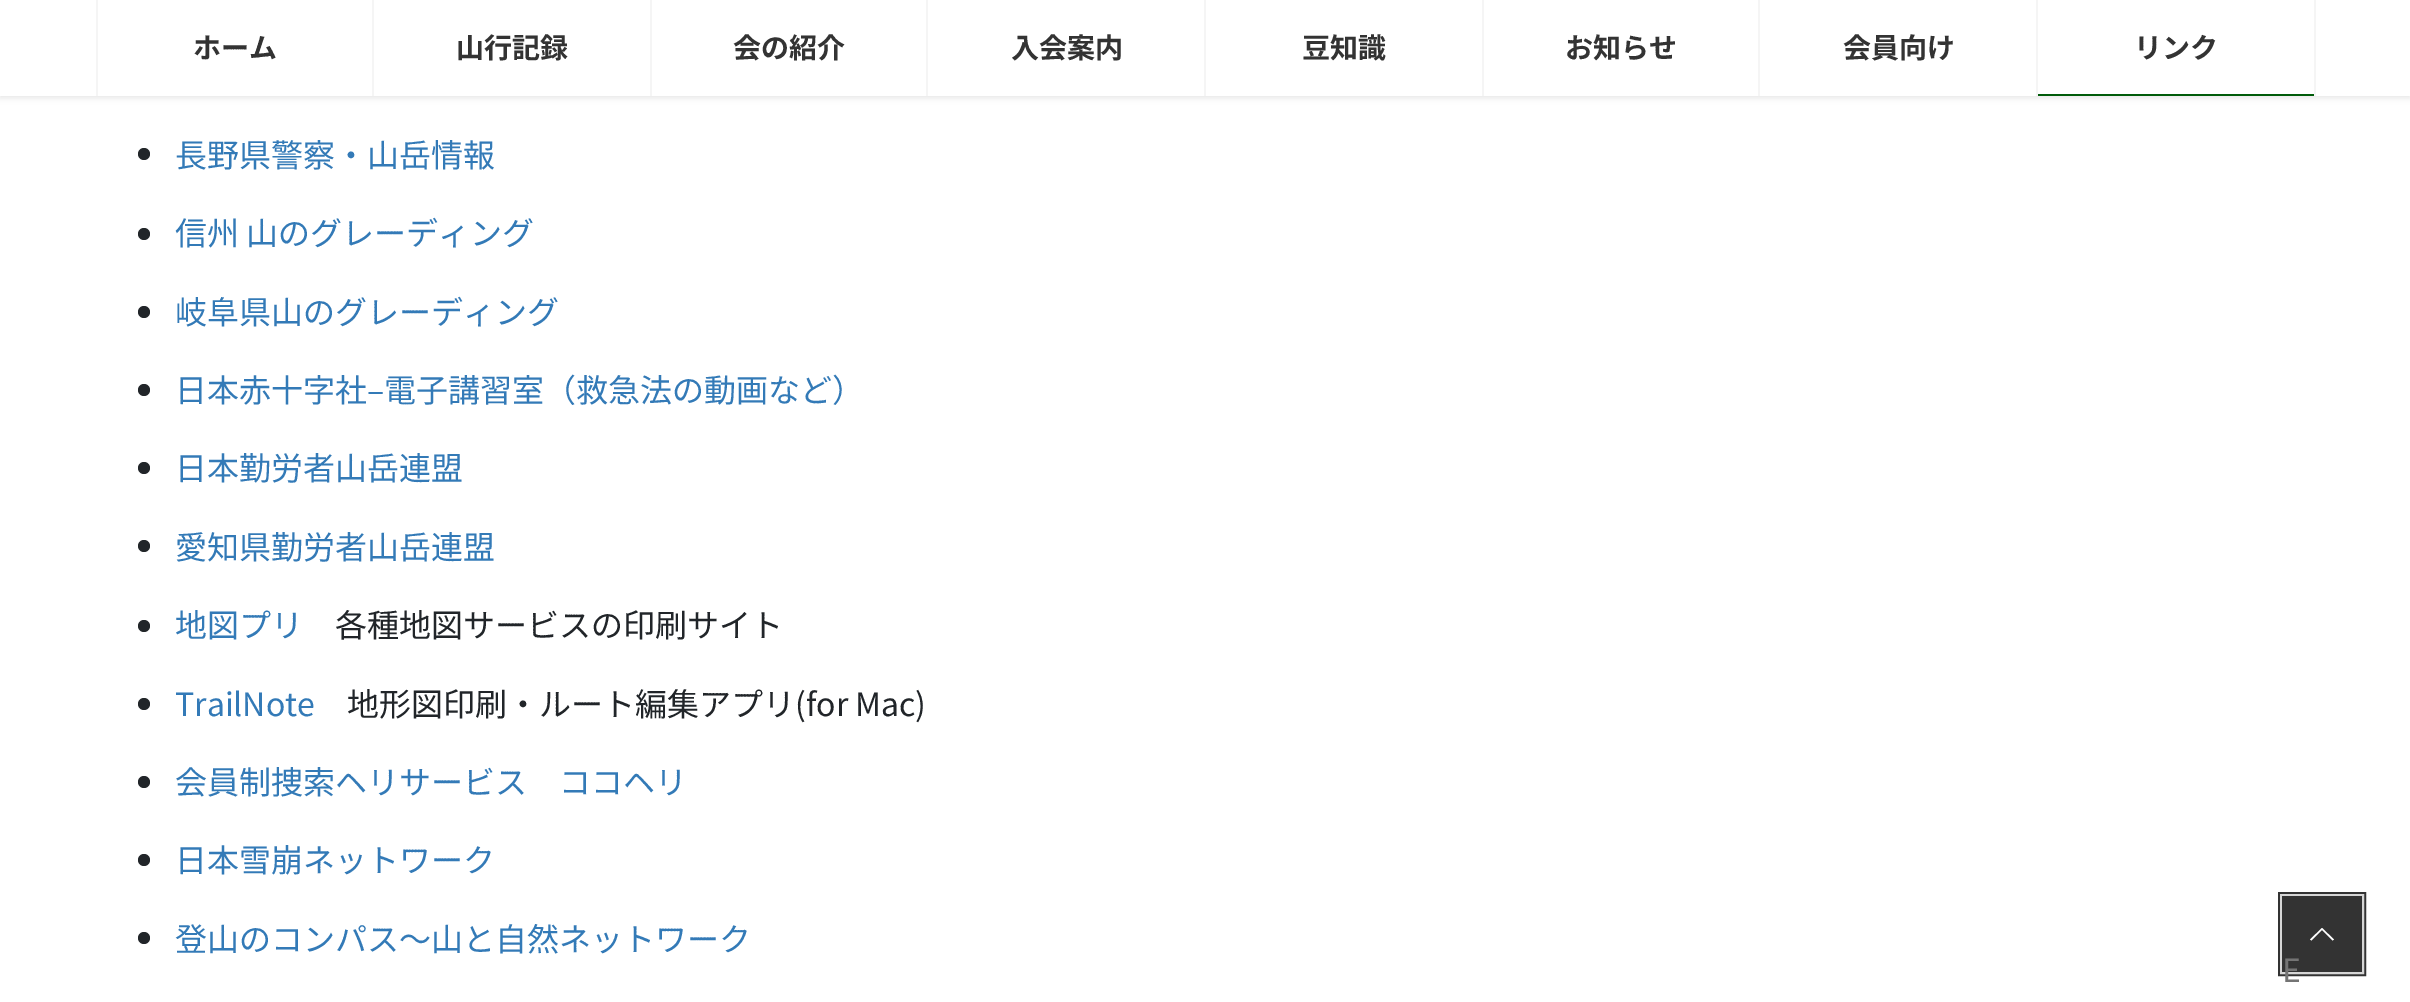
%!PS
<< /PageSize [2410 1002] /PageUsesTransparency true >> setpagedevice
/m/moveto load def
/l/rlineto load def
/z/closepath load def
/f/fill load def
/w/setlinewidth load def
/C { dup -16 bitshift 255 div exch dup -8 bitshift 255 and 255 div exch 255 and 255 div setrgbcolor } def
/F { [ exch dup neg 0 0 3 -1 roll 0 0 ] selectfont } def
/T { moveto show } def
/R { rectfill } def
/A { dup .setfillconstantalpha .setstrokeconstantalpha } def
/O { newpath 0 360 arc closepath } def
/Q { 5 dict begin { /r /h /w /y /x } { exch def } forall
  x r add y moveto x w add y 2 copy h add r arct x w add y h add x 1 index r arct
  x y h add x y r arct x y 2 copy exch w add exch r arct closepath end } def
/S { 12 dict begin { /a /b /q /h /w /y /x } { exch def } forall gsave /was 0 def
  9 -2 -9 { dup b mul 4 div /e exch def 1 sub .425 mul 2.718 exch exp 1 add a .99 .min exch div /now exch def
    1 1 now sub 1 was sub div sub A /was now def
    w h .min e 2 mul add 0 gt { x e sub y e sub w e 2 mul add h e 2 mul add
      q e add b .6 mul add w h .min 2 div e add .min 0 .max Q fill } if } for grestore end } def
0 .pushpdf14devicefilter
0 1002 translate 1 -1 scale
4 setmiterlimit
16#FFFFFF C
0 0 2410 1002 R
16#000000 C
0 2 2410 96 0 3 .1 S
16#FFFFFF C
0 0 2410 96 R
16#F5F5F5 C
96 0 2 96 R
/NotoSansJP-Bold 28 F
16#333333 C
(ホーム) 193 58 T
16#F5F5F5 C
372 0 2 96 R
16#333333 C
(山行記録) 456 58 T
16#F5F5F5 C
650 0 2 96 R
16#333333 C
(会の紹介) 733 58 T
16#F5F5F5 C
926 0 2 96 R
16#333333 C
(入会案内) 1011 58 T
16#F5F5F5 C
1204 0 2 96 R
16#333333 C
(豆知識) 1302 58 T
16#F5F5F5 C
1482 0 2 96 R
16#333333 C
(お知らせ) 1565 58 T
16#F5F5F5 C
1758 0 2 96 R
16#333333 C
(会員向け) 1843 58 T
16#F5F5F5 C
2314 0 2 96 R
2036 0 2 96 R
16#333333 C
(リンク) 2134 58 T
16#005B0A C
2038 94 276 2 R
16#212529 C
144 154 6 O f
/NotoSansJP-Regular 32 F
16#337AB7 C
(長野県警察・山岳情報) 175 167 T
16#212529 C
144 234 6 O f
16#337AB7 C
(信州 山のグレーディング) 175 245 T
16#212529 C
144 312 6 O f
16#337AB7 C
(岐阜県山のグレーディング) 175 324 T
16#212529 C
144 390 6 O f
16#337AB7 C
(日本赤十字社–電子講習室（救急法の動画など）) 175 402 T
16#212529 C
144 468 6 O f
16#337AB7 C
(日本勤労者山岳連盟) 175 480 T
16#212529 C
144 546 6 O f
16#337AB7 C
(愛知県勤労者山岳連盟) 175 559 T
16#212529 C
144 626 6 O f
16#337AB7 C
(地図プリ) 175 637 T
16#212529 C
(各種地図サービスの印刷サイト) 335 637 T
144 704 6 O f
16#337AB7 C
(TrailNote) 175 716 T
16#212529 C
(地形図印刷・ルート編集アプリ\(for Mac\)) 347 716 T
144 782 6 O f
16#337AB7 C
(会員制捜索ヘリサービス　ココヘリ) 175 794 T
16#212529 C
144 860 6 O f
16#337AB7 C
(日本雪崩ネットワーク) 175 872 T
16#212529 C
144 938 6 O f
16#337AB7 C
(登山のコンパス〜山と自然ネットワーク) 175 951 T
16#333333 C
4 w
2280 894 84 80 rectstroke
16#D6D6D6 C
2 w
2281 895 82 78 rectstroke
16#333333 C
2282 896 80 76 R
16#FFFFFF C
2334 939.5 m -1.5 1 l -10.5 -10.5 l -10.5 10.5 l -1.5 -1 l 12 -11.5 l z f
16#747474 C
(E) 2282 982 T
.poppdf14devicefilter showpage
